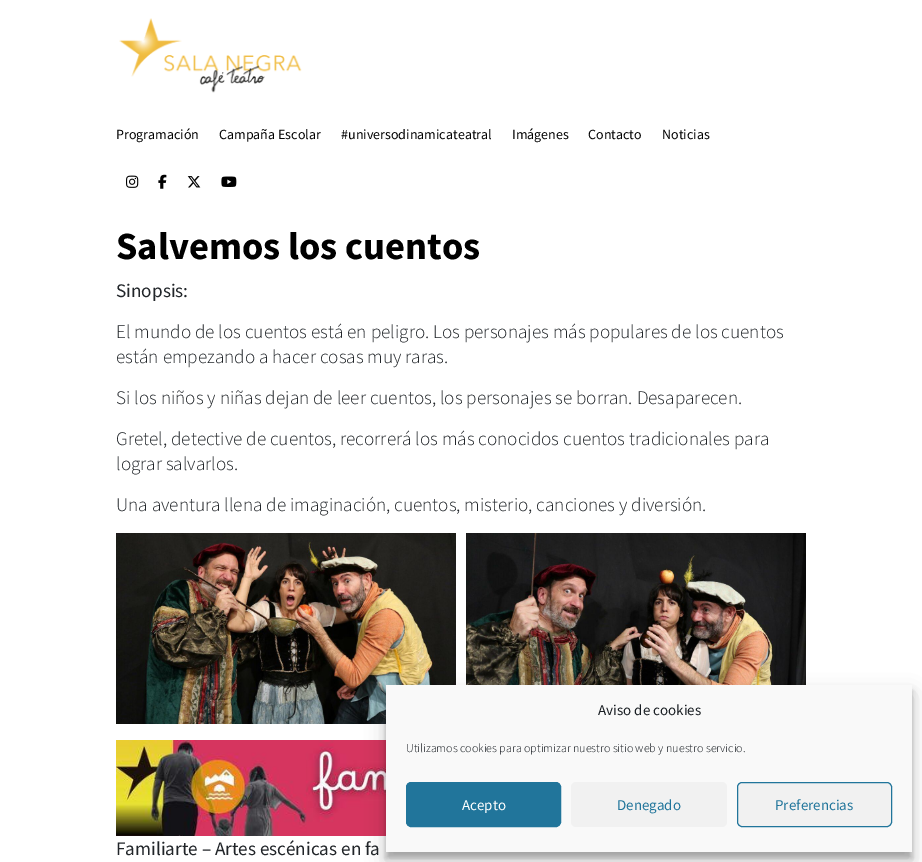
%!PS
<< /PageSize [922 862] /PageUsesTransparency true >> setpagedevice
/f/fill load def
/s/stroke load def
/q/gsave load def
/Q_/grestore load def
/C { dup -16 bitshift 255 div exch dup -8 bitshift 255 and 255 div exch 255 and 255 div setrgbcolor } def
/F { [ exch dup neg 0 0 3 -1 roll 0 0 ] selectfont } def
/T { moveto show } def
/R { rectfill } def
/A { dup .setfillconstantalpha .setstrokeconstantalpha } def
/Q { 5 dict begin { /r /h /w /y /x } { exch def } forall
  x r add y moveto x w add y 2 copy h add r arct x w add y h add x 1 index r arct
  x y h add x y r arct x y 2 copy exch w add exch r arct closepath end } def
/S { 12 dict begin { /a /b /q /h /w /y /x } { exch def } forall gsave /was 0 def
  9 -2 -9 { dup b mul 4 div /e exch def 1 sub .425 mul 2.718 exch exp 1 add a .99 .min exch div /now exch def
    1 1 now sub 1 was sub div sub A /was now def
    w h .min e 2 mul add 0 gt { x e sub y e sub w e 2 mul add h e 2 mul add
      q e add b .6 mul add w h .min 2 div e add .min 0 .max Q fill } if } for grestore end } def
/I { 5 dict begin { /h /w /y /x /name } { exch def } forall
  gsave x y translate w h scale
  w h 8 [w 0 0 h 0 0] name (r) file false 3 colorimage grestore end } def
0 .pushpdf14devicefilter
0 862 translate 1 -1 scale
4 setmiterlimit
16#FFFFFF C
0 0 922 862 R
(1.rgb) 119 18 183 75 I
/SourceSansPro-Regular 14 F
16#000000 C
(Programación) 116 139 T
(Campaña Escolar) 219 139 T
(#universodinamicateatral) 341 139 T
(Imágenes) 512 139 T
(Contacto) 588 139 T
(Noticias) 662 139 T
(2.rgb) 126 175 13 13 I
(3.rgb) 158 174 9 15 I
(4.rgb) 187 176 14 12 I
(5.rgb) 221 176 16 11 I
/SourceSansPro-Bold 38.5 F
(Salvemos los cuentos) 116 259 T
/SourceSansPro-Regular 19.2 F
16#212529 C
(Sinopsis:) 116 297 T
/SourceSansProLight-Light 19.2 F
(El mundo de los cuentos está en peligro. Los personajes más populares de los cuentos) 116 338 T
(están empezando a hacer cosas muy raras.) 116 363 T
(Si los niños y niñas dejan de leer cuentos, los personajes se borran. Desaparecen.) 116 404 T
(Gretel, detective de cuentos, recorrerá los más conocidos cuentos tradicionales para) 116 445 T
(lograr salvarlos.) 116 470 T
(Una aventura llena de imaginación, cuentos, misterio, canciones y diversión.) 116 511 T
(6.rgb) 116 533 340 191 I
(7.rgb) 466 533 340 152 I
(8.rgb) 116 740 270 96 I
/SourceSansPro-Regular 19.2 F
(Familiarte – Artes escénicas en fa) 116 855 T
16#000000 C
386 691 526 167 0 3 .23 S
386 695 526 167 0 10 .19 S
16#F9F9F9 C
386 685 526 167 R
/SourceSansPro-Regular 15 F
16#191E23 C
(Aviso de cookies) 598 715 T
/SourceSansProLight-Light 12 F
(Utilizamos cookies para optimizar nuestro sitio web y nuestro servicio.) 406 752 T
16#21759B C
406.5 782.5 154 44 4.5 Q q f Q_
s
/SourceSansPro-Regular 15 F
16#FFFFFF C
(Acepto) 462 810 T
16#F1F1F1 C
571 782 156 45 5 Q f
16#21759B C
(Denegado) 617 810 T
16#F1F1F1 C
737.5 782.5 154 44 4.5 Q q f Q_
16#21759B C
s
(Preferencias) 775 810 T
.poppdf14devicefilter showpage
